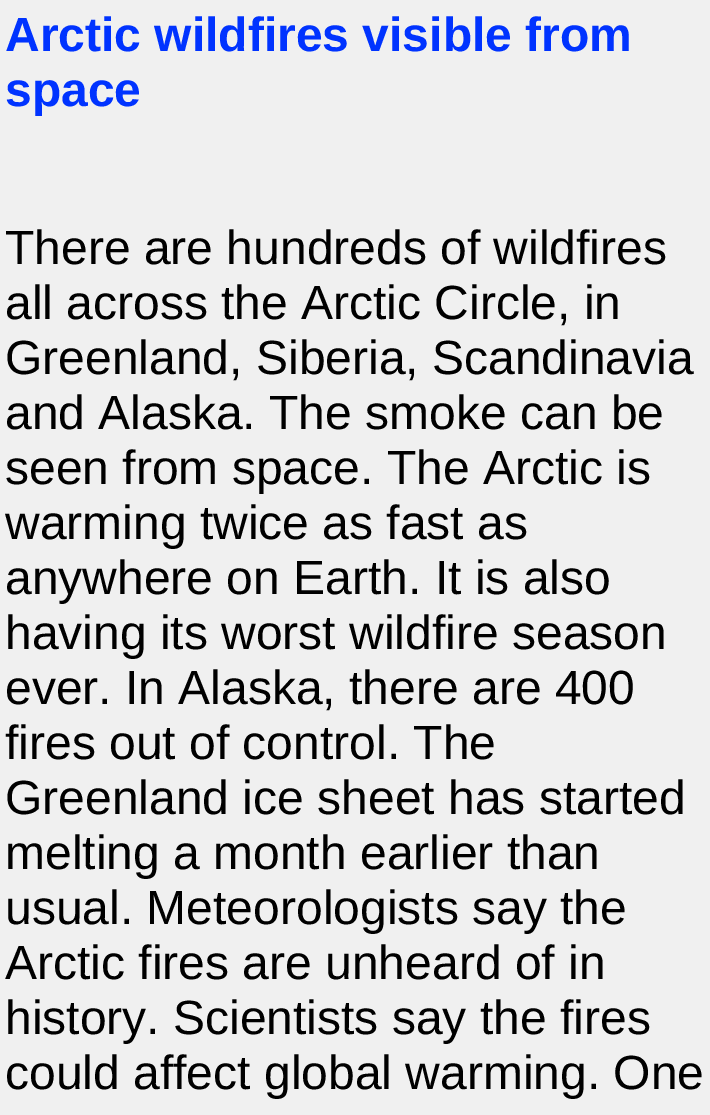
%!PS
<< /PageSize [710 1115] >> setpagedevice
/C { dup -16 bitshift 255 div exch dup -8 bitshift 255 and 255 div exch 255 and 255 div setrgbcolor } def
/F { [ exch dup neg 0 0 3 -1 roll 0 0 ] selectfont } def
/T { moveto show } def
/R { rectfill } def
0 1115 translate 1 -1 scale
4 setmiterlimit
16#F0F0F0 C
0 0 710 1115 R
/LiberationSans-Bold 48 F
16#0033FF C
(Arctic wildfires visible from) 5 51 T
(space) 5 106 T
/LiberationSans-Regular 48 F
16#000000 C
(There are hundreds of wildfires) 5 264 T
(all across the Arctic Circle, in) 5 319 T
(Greenland, Siberia, Scandinavia) 5 374 T
(and Alaska. The smoke can be) 5 429 T
(seen from space. The Arctic is) 5 484 T
(warming twice as fast as) 5 539 T
(anywhere on Earth. It is also) 5 594 T
(having its worst wildfire season) 5 649 T
(ever. In Alaska, there are 400) 5 704 T
(fires out of control. The) 5 759 T
(Greenland ice sheet has started) 5 814 T
(melting a month earlier than) 5 869 T
(usual. Meteorologists say the) 5 924 T
(Arctic fires are unheard of in) 5 979 T
(history. Scientists say the fires) 5 1034 T
(could affect global warming. One) 5 1089 T
showpage
